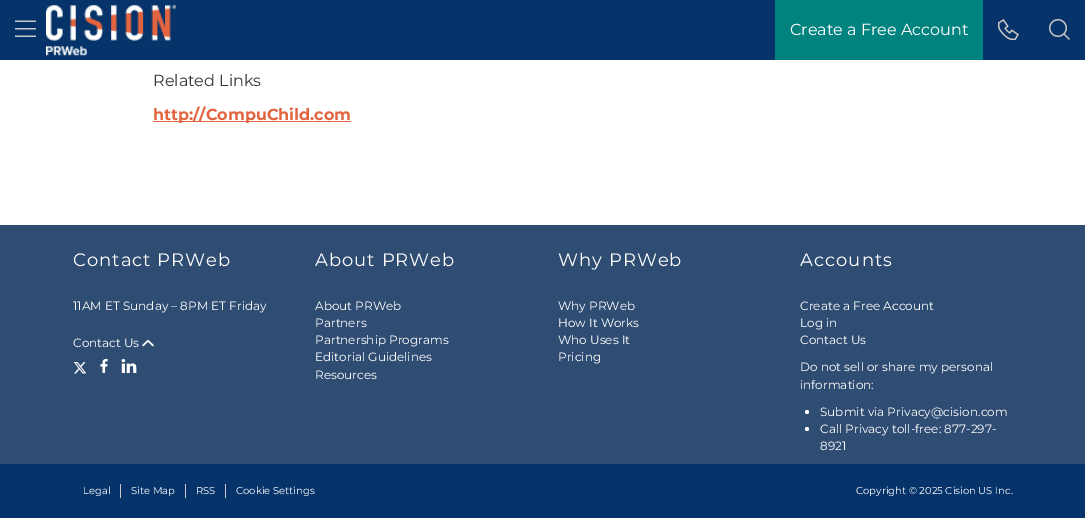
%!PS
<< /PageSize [1085 518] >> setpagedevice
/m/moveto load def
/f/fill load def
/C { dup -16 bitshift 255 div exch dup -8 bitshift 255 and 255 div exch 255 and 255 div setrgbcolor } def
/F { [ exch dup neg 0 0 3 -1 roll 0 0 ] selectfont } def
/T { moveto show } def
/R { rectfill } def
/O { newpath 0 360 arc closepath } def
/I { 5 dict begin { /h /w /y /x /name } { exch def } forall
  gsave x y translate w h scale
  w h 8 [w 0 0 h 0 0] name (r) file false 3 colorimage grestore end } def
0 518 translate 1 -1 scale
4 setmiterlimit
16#FFFFFF C
0 0 1085 518 R
16#063369 C
0 0 1085 60 R
(1.rgb) 15 20 21 17 I
(2.rgb) 46 5 130 51 I
16#00837E C
775 0 208 60 R
/Montserrat-Regular 16 F
16#FFFFFF C
(Create a Free Account) 790 35 T
(3.rgb) 998 19 21 21 I
(4.rgb) 1049 19 21 21 I
16#373737 C
(Related Links) 153 86 T
16#E26540 C
153 121 198 1 R
/Montserrat-Bold 16 F
(http://CompuChild.com) 153 120 T
16#2F4C72 C
0 225 1085 239 R
/Montserrat-Regular 18 F
16#FFFFFF C
73 266 m 1 0 (Contact PRWeb) ashow
/Montserrat-Regular 12 F
(11AM ET Sunday – 8PM ET Friday) 73 310 T
(Contact Us) 73 347 T
(5.rgb) 142 339 12 8 I
(6.rgb) 73 362 14 12 I
(7.rgb) 100 359 8 14 I
(8.rgb) 121 359 16 14 I
/Montserrat-Regular 18 F
315 266 m 1 0 (About PRWeb) ashow
/Montserrat-Regular 12 F
(About PRWeb) 315 310 T
(Partners) 315 327 T
(Partnership Programs) 315 344 T
(Editorial Guidelines) 315 361 T
(Resources) 315 379 T
/Montserrat-Regular 18 F
558 266 m 1 0 (Why PRWeb) ashow
/Montserrat-Regular 12 F
(Why PRWeb) 558 310 T
(How It Works) 558 327 T
(Who Uses It) 558 344 T
(Pricing) 558 361 T
/Montserrat-Regular 18 F
800 266 m 1 0 (Accounts) ashow
/Montserrat-Regular 12 F
(Create a Free Account) 800 310 T
(Log in) 800 327 T
(Contact Us) 800 344 T
(Do not sell or share my personal) 800 371 T
(information:) 800 389 T
807 412 2 O f
(Submit via Privacy@cision.com) 820 416 T
807 429 2 O f
(Call Privacy toll-free: 877-297-) 820 433 T
(8921) 820 450 T
16#063369 C
0 464 1085 54 R
16#CAC8C8 C
120 484 1 14 R
/Montserrat-Regular 10 F
16#FFFFFF C
(Legal) 83 494 T
16#CAC8C8 C
185 484 1 14 R
16#FFFFFF C
(Site Map) 131 494 T
16#CAC8C8 C
225 484 1 14 R
16#FFFFFF C
(RSS) 196 494 T
(Cookie Settings) 236 494 T
(Copyright © 2025 Cision US Inc.) 856 494 T
showpage
